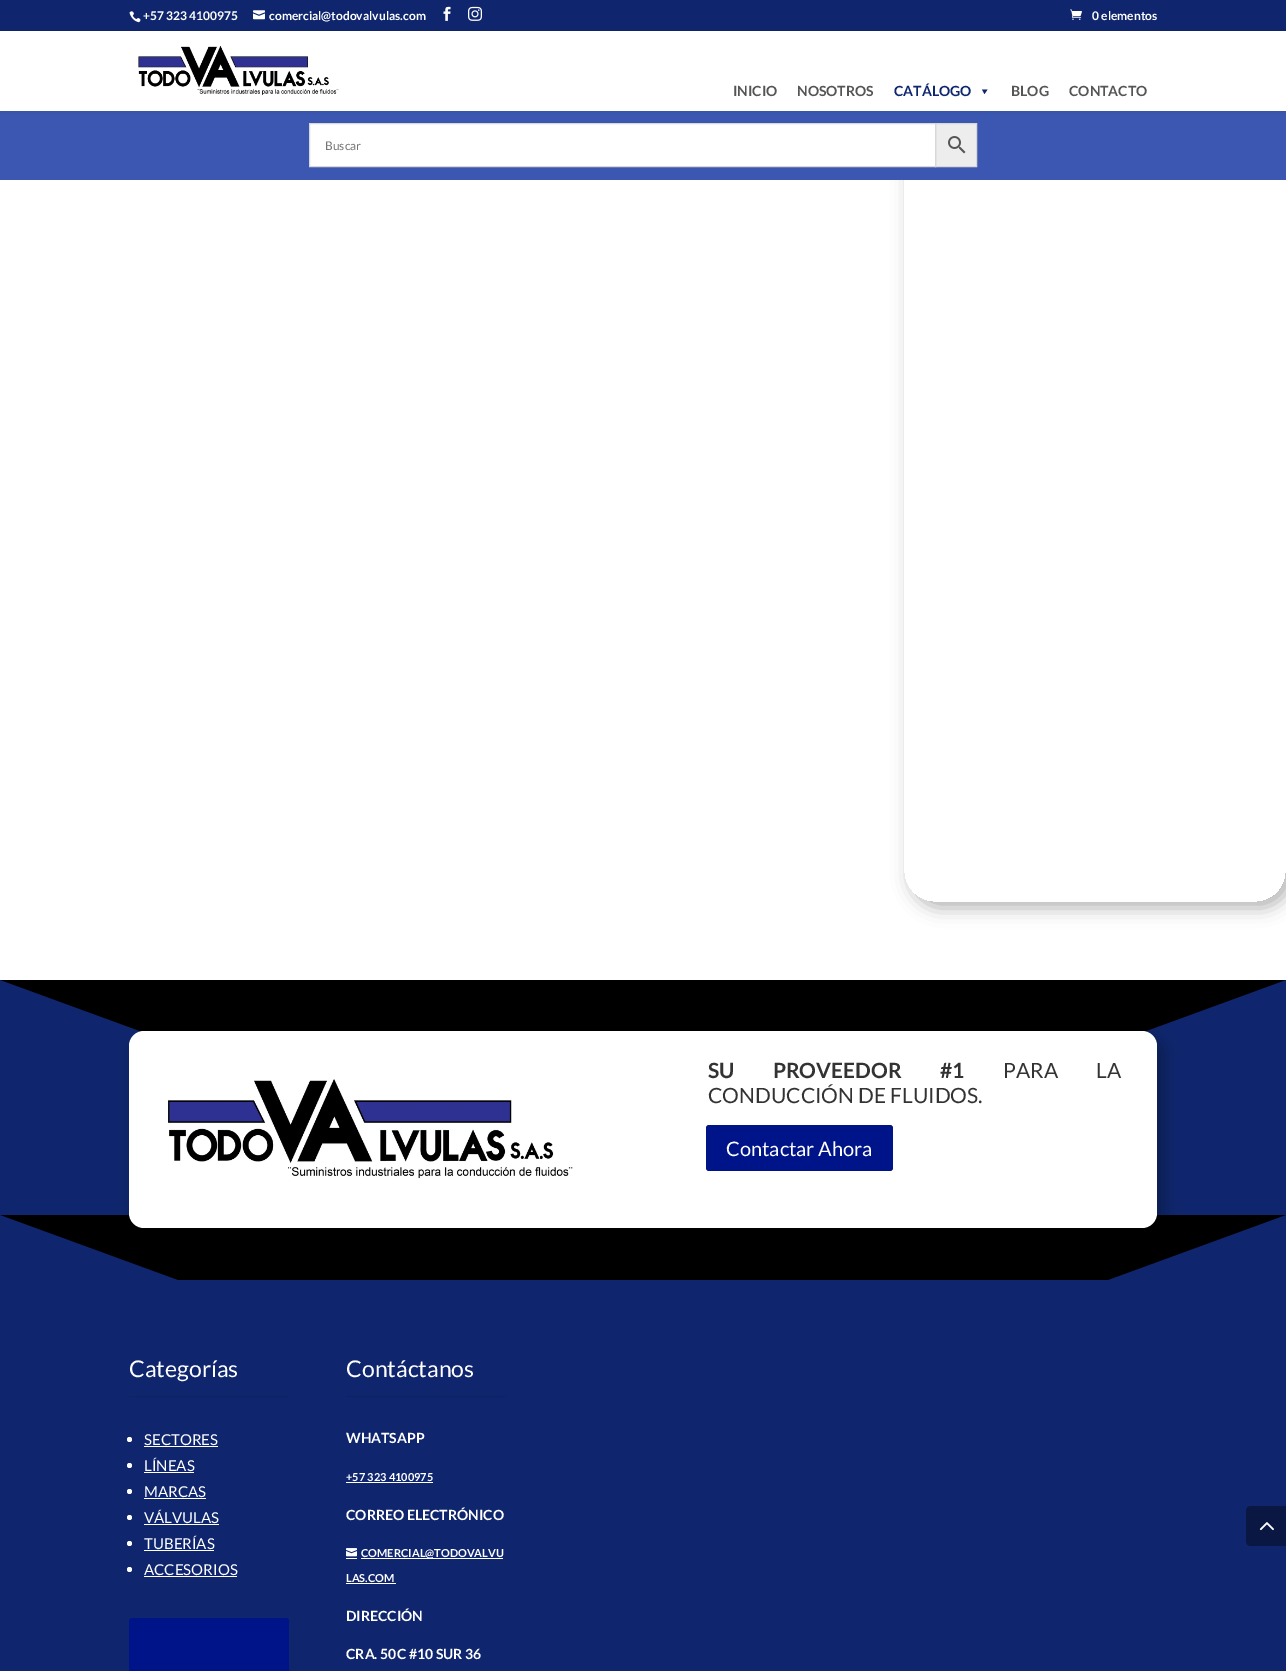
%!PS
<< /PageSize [1286 1671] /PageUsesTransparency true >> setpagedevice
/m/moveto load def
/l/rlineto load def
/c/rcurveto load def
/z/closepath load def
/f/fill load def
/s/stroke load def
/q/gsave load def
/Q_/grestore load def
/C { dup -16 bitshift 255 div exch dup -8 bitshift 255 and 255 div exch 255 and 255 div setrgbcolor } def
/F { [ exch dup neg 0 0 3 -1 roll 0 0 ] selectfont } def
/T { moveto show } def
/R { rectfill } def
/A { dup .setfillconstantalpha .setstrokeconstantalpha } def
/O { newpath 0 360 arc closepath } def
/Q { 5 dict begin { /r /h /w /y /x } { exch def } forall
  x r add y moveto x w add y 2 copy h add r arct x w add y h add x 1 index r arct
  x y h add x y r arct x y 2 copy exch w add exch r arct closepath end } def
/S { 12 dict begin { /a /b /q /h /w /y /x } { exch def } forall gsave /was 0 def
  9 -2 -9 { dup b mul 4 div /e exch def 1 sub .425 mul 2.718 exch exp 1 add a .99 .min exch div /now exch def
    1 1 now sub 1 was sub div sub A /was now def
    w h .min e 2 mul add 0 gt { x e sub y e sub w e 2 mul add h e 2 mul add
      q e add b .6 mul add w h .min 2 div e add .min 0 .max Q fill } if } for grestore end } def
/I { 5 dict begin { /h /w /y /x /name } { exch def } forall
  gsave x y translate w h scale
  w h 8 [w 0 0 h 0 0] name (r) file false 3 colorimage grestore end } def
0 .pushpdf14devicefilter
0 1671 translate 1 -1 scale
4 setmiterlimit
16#FFFFFF C
0 0 1286 1671 R
q
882 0 m 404 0 l 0 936 l -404 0 l z 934 -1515 m 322 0 l 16.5 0 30 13.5 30 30 c 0 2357 l 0 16.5 -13.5 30 -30 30 c -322 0 l -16.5 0 -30 -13.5 -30 -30 c 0 -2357 l 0 -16.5 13.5 -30 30 -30 c z eoclip newpath
16#000000 C
910 -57 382 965 30 9 .3 S
Q_
16#0F266E C
0 0 1286 31 R
(1.rgb) 129 11 12 12 I
/Lato-Bold 12 F
16#FFFFFF C
(+57 323 4100975) 143 20 T
(2.rgb) 253 10 12 10 I
(comercial@todovalvulas.com) 269 20 T
(3.rgb) 443 6 8 15 I
(4.rgb) 468 6 14 15 I
(5.rgb) 1070 9 12 11 I
(0 elementos) 1092 20 T
16#3B57B2 C
0 111 1286 69 R
16#000000 C
0 31 1286 80 0 3.5 .1 S
16#FFFFFF C
0 31 1286 80 R
(6.rgb) 138 46 201 49 I
/Lato-Bold 14 F
16#555555 C
(INICIO) 733 96 T
(NOSOTROS) 797 96 T
16#0F266E C
(CATÁLOGO) 894 96 T
987.5 89.5 m -3 4.5 l -2.5 -4.5 l z f
16#555555 C
(BLOG) 1011 96 T
(CONTACTO) 1069 96 T
16#EDEDED C
935.5 123.5 m 41 0 l 0 43 l -41 0 l z q f Q_
16#D8D8D8 C
s
16#FFFFFF C
309.5 123.5 m 626 0 l 0 43 l -626 0 l z q f Q_
16#D8D8D8 C
s
/Lato-Regular 12 F
16#757575 C
(Buscar) 325 150 T
(7.rgb) 948 136 18 18 I
16#0F266E C
0 980 1286 691 R
(8.rgb) 0 980 1286 300 I
16#000000 C
135 1037 1028 197 15 9 .3 S
16#FFFFFF C
129 1031 1028 197 15 Q f
(9.rgb) 168 1079 405 100 I
/Lato-Bold 21 F
16#333333 C
708 1078 m 34 0 32 (SU PROVEEDOR #1) widthshow
/Lato-Regular 21 F
1003 1078 m 34 0 32 (PARA LA) widthshow
(CONDUCCIÓN DE FLUIDOS.) 708 1103 T
16#001489 C
706 1125 187 46 3 Q f
/Lato-Regular 20 F
16#FFFFFF C
(Contactar Ahora) 726 1156 T
/Lato-Regular 23 F
(Categorías) 129 1377 T
16#0E2263 C
129 1396 160 1 R
16#FFFFFF C
129.5 1439.5 2.5 O f
/Lato-Regular 15 F
(SECTORES) 144 1445 T
144 1446 74 1 R
129.5 1465.5 2.5 O f
(LÍNEAS) 144 1471 T
144 1472 50 1 R
129.5 1491.5 2.5 O f
(MARCAS) 144 1497 T
144 1498 62 1 R
129.5 1517.5 2.5 O f
(VÁLVULAS) 144 1523 T
144 1524 75 1 R
129.5 1543.5 2.5 O f
(TUBERÍAS) 144 1549 T
144 1550 70 1 R
129.5 1569.5 2.5 O f
(ACCESORIOS) 144 1575 T
144 1576 93 1 R
16#001489 C
129 1618 160 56 3 Q f
/Lato-Regular 23 F
16#FFFFFF C
(Contáctanos) 346 1377 T
16#0E2263 C
346 1396 160 1 R
/Lato-Bold 14 F
16#FFFFFF C
(WHATSAPP) 346 1443 T
/Lato-Bold 11 F
(+57 323 4100975) 346 1481 T
346 1482 87 1 R
/Lato-Bold 14 F
(CORREO ELECTRÓNICO) 346 1520 T
(10.rgb) 346 1548 11 9 I
361 1558 142 1 R
/Lato-Bold 11 F
(COMERCIAL@TODOVALVU) 361 1557 T
346 1558 11 1 R
(LAS.COM) 346 1582 T
346 1583 50 1 R
/Lato-Bold 14 F
(DIRECCIÓN) 346 1621 T
(CRA. 50C #10 SUR 36) 346 1659 T
16#091742 C
1251 1506 m 35 0 l 0 40 l -35 0 l -3 0 -5 -2 -5 -5 c 0 -30 l 0 -3 2 -5 5 -5 c z f
(11.rgb) 1259 1522 15 9 I
.poppdf14devicefilter showpage
